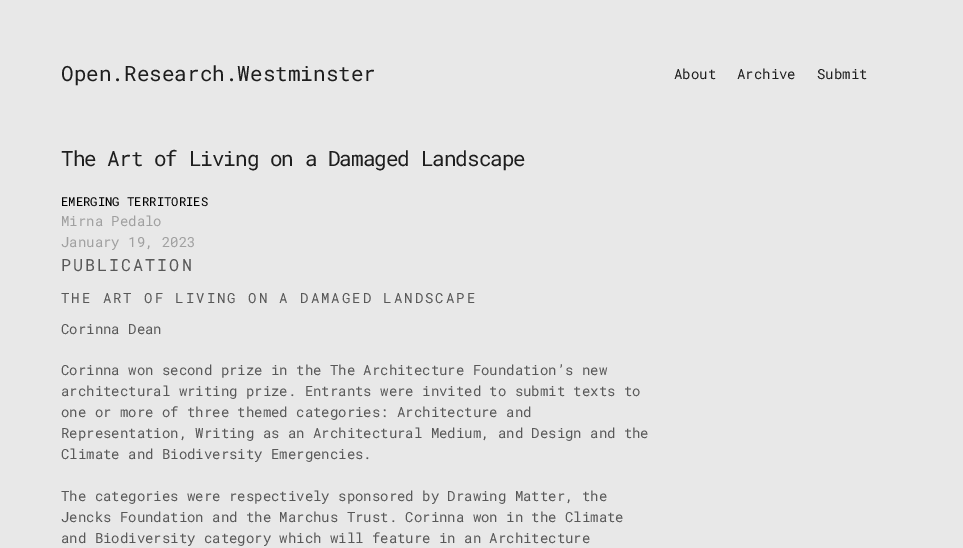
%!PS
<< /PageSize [963 548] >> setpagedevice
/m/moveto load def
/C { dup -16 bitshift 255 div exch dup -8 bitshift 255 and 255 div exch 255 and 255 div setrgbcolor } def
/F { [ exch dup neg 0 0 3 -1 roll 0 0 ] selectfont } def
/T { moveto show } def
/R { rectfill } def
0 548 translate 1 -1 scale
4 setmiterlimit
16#E8E8E8 C
0 0 963 548 R
/RobotoMono-Regular 21 F
16#1E1E1E C
(Open.Research.Westminster) 61 81 T
/RobotoMono-Regular 14 F
(About) 674 79 T
(Archive) 737 79 T
(Submit) 817 79 T
/RobotoMono-Regular 21 F
61 166 m -1 0 (The Art of Living on a Damaged Landscape) ashow
/RobotoMono-Regular 12.25 F
16#000000 C
(EMERGING TERRITORIES) 61 206 T
/RobotoMono-Regular 14 F
16#A0A0A0 C
(Mirna Pedalo) 61 226 T
(January 19, 2023) 61 247 T
/RobotoMono-Regular 16.75 F
16#585858 C
61 271 m 2 0 (PUBLICATION) ashow
/RobotoMono-Regular 14 F
61 303 m 2 0 (THE ART OF LIVING ON A DAMAGED LANDSCAPE) ashow
(Corinna Dean) 61 334 T
(Corinna won second prize in the The Architecture Foundation’s new) 61 375 T
(architectural writing prize. Entrants were invited to submit texts to) 61 396 T
(one or more of three themed categories: Architecture and) 61 417 T
(Representation, Writing as an Architectural Medium, and Design and the) 61 438 T
(Climate and Biodiversity Emergencies.) 61 459 T
(The categories were respectively sponsored by Drawing Matter, the) 61 501 T
(Jencks Foundation and the Marchus Trust. Corinna won in the Climate) 61 522 T
(and Biodiversity category which will feature in an Architecture) 61 543 T
showpage
